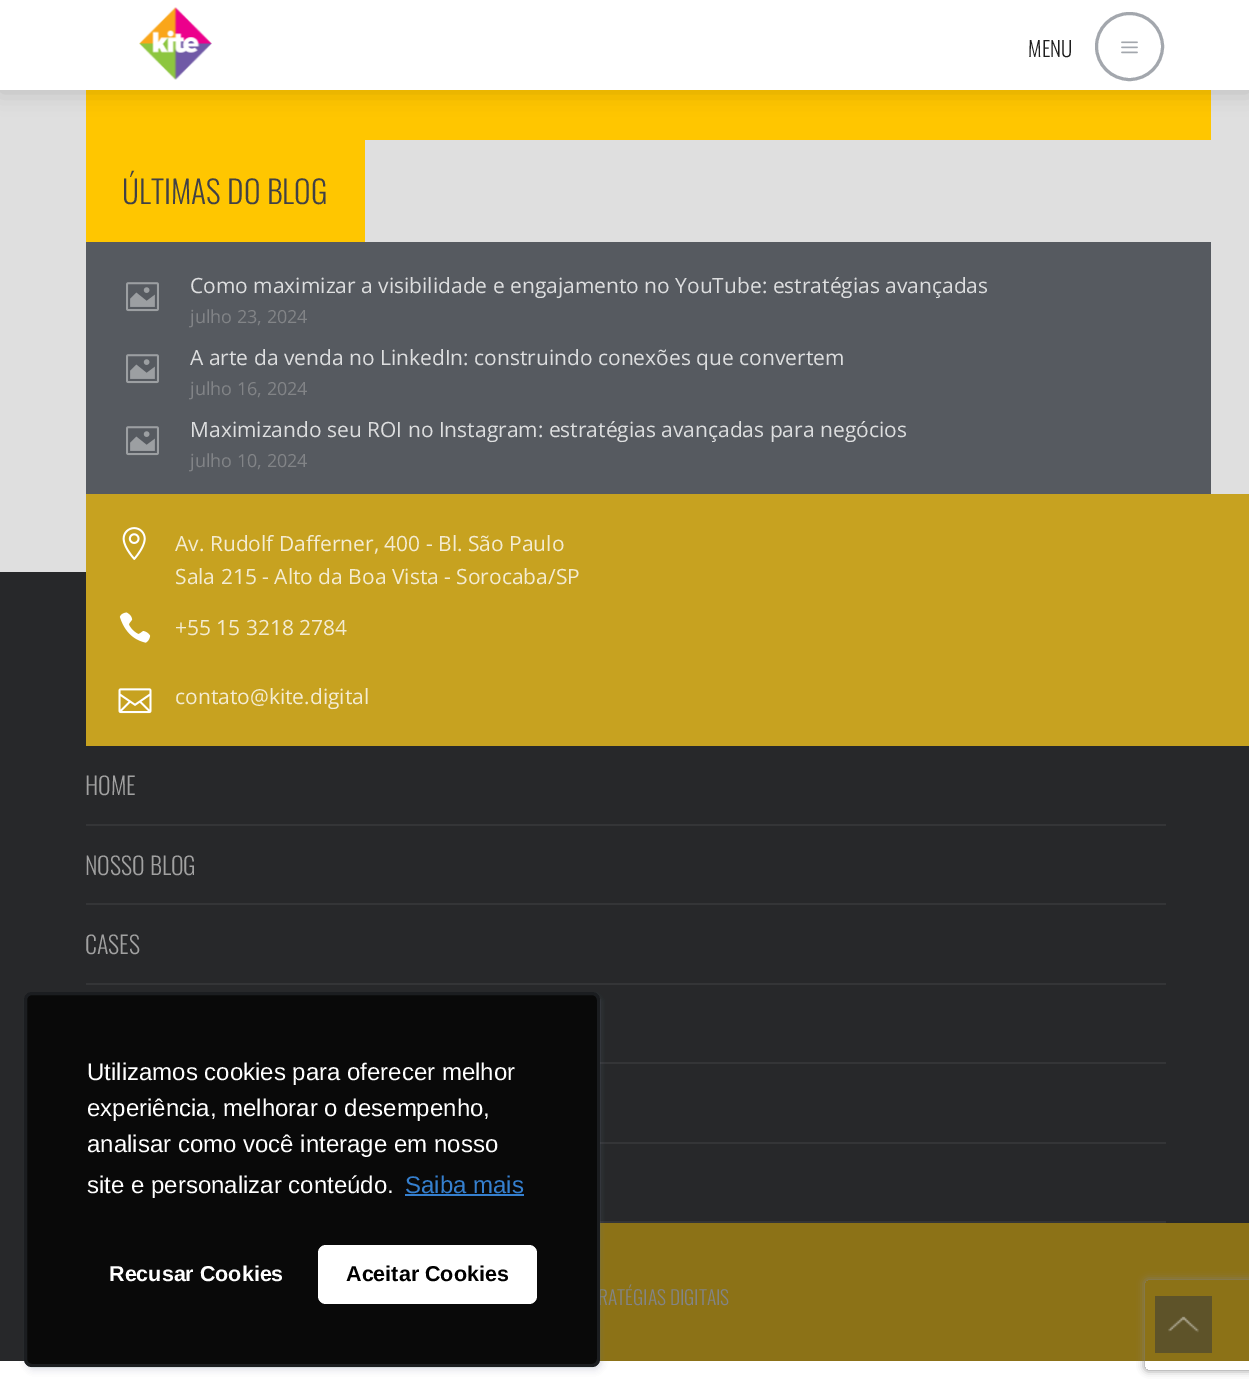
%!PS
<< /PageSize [1249 1390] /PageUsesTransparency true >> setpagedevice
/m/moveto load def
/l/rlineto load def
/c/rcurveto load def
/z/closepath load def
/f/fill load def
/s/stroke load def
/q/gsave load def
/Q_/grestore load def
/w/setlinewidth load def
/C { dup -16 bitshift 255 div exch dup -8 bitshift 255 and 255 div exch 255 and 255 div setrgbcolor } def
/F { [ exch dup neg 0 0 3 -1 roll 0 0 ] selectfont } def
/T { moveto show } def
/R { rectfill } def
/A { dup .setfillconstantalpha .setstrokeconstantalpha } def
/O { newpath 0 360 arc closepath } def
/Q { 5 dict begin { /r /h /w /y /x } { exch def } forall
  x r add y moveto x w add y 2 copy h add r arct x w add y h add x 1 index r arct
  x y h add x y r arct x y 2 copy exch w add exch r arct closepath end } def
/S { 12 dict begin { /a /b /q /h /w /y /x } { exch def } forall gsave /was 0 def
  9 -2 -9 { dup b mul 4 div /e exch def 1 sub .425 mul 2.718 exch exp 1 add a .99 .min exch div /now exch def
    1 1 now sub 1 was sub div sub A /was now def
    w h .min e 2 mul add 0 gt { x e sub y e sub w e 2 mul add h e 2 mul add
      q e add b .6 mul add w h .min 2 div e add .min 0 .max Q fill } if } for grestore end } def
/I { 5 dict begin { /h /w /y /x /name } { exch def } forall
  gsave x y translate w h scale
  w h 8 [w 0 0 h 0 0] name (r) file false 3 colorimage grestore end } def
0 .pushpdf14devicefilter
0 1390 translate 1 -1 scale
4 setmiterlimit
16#FFFFFF C
0 0 1249 1390 R
16#DFDFDF C
0 90 1249 482 R
16#FFC600 C
86 90 1125 50 R
16#000000 C
0 2 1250 90 0 11 .15 S
16#FFFFFF C
0 0 1249 90 R
(1.rgb) 139 7 73 73 I
/Oswald-Light 21 F
16#1E1E1E C
(MENU) 1028 57 T
16#A3A7AD C
3 w
1129.5 46.5 33 O s
(2.rgb) 1121 41 17 13 I
16#FFC600 C
86 140 279 102 R
/Oswald-Light 31.5 F
16#414146 C
(ÚLTIMAS DO BLOG) 122 204 T
16#565A60 C
86 242 1125 252 R
(3.rgb) 126 282 33 30 I
/OpenSans-Regular 21 F
16#DDDEDF C
(Como maximizar a visibilidade e engajamento no YouTube: estratégias avançadas) 190 293 T
/OpenSans-Regular 18 F
16#828487 C
(julho 23, 2024) 190 323 T
(3.rgb) 126 354 33 30 I
/OpenSans-Regular 21 F
16#DDDEDF C
(A arte da venda no LinkedIn: construindo conexões que convertem) 190 365 T
/OpenSans-Regular 18 F
16#828487 C
(julho 16, 2024) 190 395 T
(3.rgb) 126 426 33 30 I
/OpenSans-Regular 21 F
16#DDDEDF C
(Maximizando seu ROI no Instagram: estratégias avançadas para negócios) 190 437 T
/OpenSans-Regular 18 F
16#828487 C
(julho 10, 2024) 190 467 T
16#27282A C
0 572 1249 789 R
16#C7A220 C
86 494 1163 252 R
(4.rgb) 122 527 24 33 I
/OpenSans-Regular 21 F
16#F4ECD2 C
(Av. Rudolf Dafferner, 400 - Bl. São Paulo) 175 551 T
(Sala 215 - Alto da Boa Vista - Sorocaba/SP) 175 584 T
(5.rgb) 119 612 32 31 I
(+55 15 3218 2784) 175 635 T
(6.rgb) 118 688 34 26 I
(contato@kite.digital) 175 704 T
16#343537 C
86 824 1080 2 R
/Oswald-Light 24 F
16#A1A1A1 C
(HOME) 85 795 T
16#343537 C
86 903 1080 2 R
16#A1A1A1 C
(NOSSO BLOG) 85 875 T
16#343537 C
86 983 1080 2 R
16#A1A1A1 C
(CASES) 85 954 T
16#343537 C
600 1062 566 2 R
600 1142 566 2 R
600 1221 566 2 R
16#8C7217 C
599 1223 650 138 R
/Oswald-Light 19.5 F
16#828487 C
(RATÉGIAS DIGITAIS) 598 1305 T
16#636E7C C
26 995 576 375 8 3 .1 S
0.2 A
25.5 993.5 573 372 6.5 Q s
1 A
26 995 576 375 8 3 .1 S
16#090909 C
24 992 576 375 8 Q f
0.2 A
16#636E7C C
25.5 993.5 573 372 6.5 Q s
/LiberationSans-Regular 24 F
1 A
16#FFFFFF C
(Utilizamos cookies para oferecer melhor) 87 1080 T
(experiência, melhorar o desempenho,) 87 1116 T
(analisar como você interage em nosso) 87 1152 T
(site e personalizar conteúdo.) 87 1193 T
16#357FCE C
(Saiba mais) 405 1193 T
405 1194 119 2 R
/LiberationSans-Bold 21.5 F
16#FFFFFF C
(Recusar Cookies) 109 1281 T
318 1245 219 59 8 Q f
16#000000 C
(Aceitar Cookies) 346 1281 T
q
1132 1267 m 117 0 l 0 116 l -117 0 l z 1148 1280 m 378 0 l 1.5 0 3 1.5 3 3 c 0 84 l 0 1.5 -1.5 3 -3 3 c -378 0 l -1.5 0 -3 -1.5 -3 -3 c 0 -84 l 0 -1.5 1.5 -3 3 -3 c z eoclip newpath
16#808080 C
1145 1280 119 90 3 4 1 S
Q_
16#5E5329 C
1155 1296 57 57 R
(7.rgb) 1168 1316 31 17 I
.poppdf14devicefilter showpage
